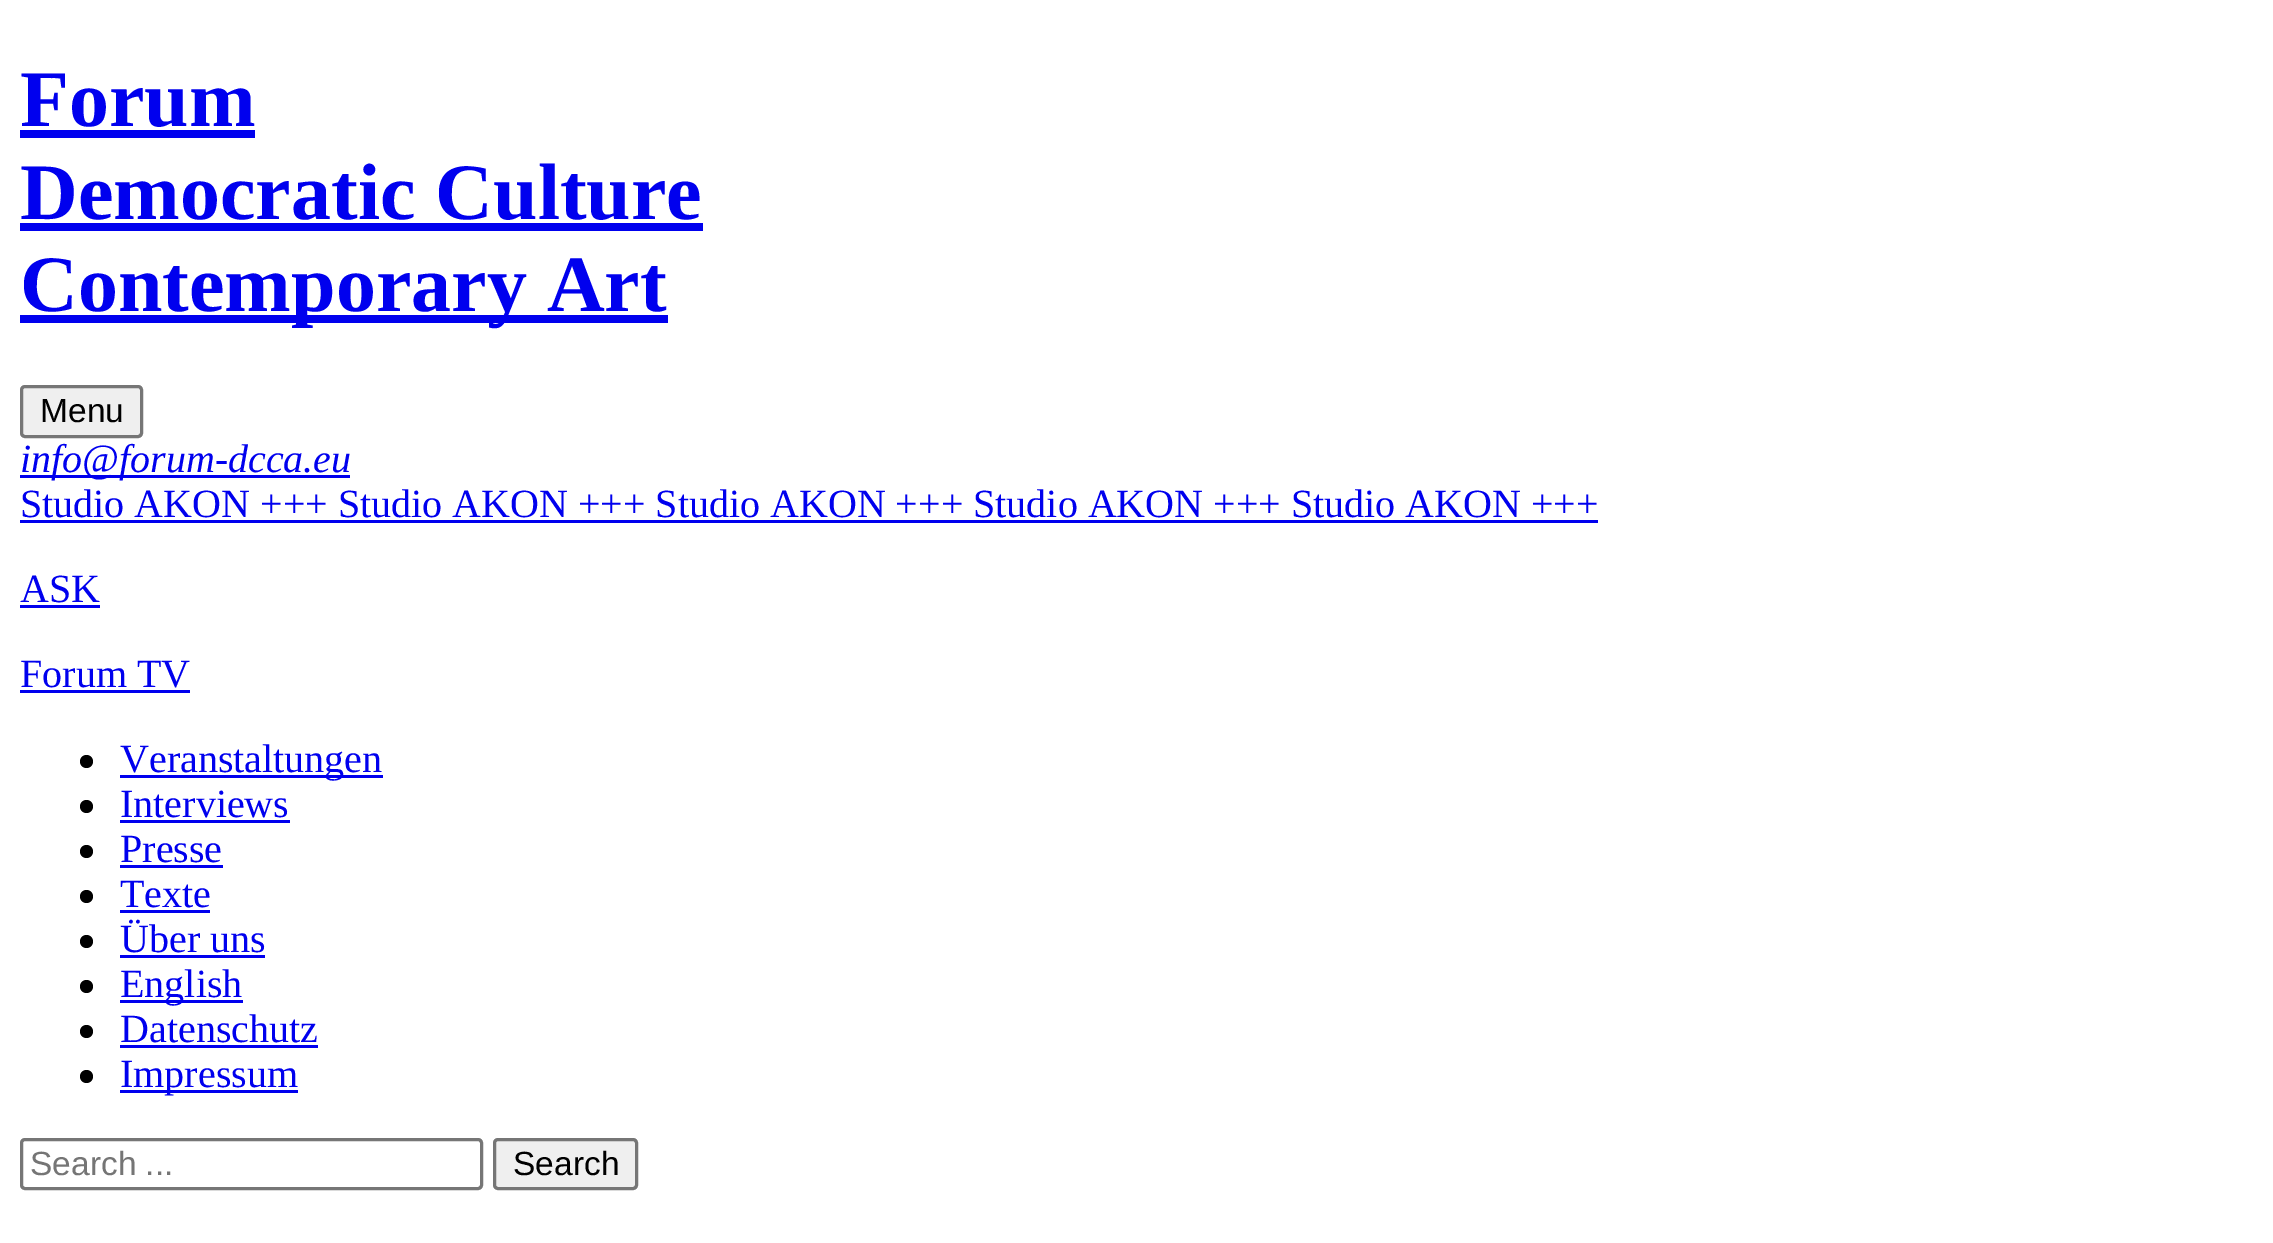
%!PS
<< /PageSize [2273 1243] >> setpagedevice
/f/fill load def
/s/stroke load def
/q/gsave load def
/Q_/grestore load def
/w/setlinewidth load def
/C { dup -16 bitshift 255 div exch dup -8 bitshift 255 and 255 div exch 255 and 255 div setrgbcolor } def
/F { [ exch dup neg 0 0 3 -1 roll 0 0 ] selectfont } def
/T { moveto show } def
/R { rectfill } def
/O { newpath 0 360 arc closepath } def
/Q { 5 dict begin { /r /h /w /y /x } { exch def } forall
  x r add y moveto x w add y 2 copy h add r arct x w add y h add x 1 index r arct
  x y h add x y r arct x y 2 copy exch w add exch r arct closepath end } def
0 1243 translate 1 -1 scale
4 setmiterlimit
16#FFFFFF C
0 0 2273 1243 R
/LiberationSerif-Bold 80 F
16#0000EE C
(Forum) 20 126 T
20 130 235 8 R
(Democratic Culture) 20 219 T
20 223 683 8 R
20 315 648 8 R
(Contemporary Art) 20 311 T
16#EFEFEF C
21.5 386.5 120 50 3.5 Q q f Q_
16#767676 C
3 w
s
/LiberationSans-Regular 33.5 F
16#000000 C
(Menu) 40 422 T
16#0000EE C
20 475 330 3 R
/LiberationSerif-Italic 40 F
(info@forum-dcca.eu) 20 472 T
/LiberationSerif-Regular 40 F
(Studio AKON +++ Studio AKON +++ Studio AKON +++ Studio AKON +++ Studio AKON +++) 20 517 T
20 520 1578 3 R
(ASK) 20 602 T
20 605 80 3 R
(Forum TV) 20 687 T
20 690 170 3 R
16#000000 C
86.5 761.5 6.5 O f
16#0000EE C
120 775 263 3 R
(Veranstaltungen) 120 772 T
16#000000 C
86.5 806.5 6.5 O f
16#0000EE C
(Interviews) 120 817 T
120 820 170 3 R
16#000000 C
86.5 851.5 6.5 O f
16#0000EE C
(Presse) 120 862 T
120 865 103 3 R
16#000000 C
86.5 896.5 6.5 O f
16#0000EE C
(Texte) 120 907 T
120 910 90 3 R
16#000000 C
86.5 941.5 6.5 O f
16#0000EE C
(Über uns) 120 952 T
120 955 145 3 R
16#000000 C
86.5 986.5 6.5 O f
16#0000EE C
120 1000 123 3 R
(English) 120 997 T
16#000000 C
86.5 1031.5 6.5 O f
16#0000EE C
(Datenschutz) 120 1042 T
120 1045 198 3 R
16#000000 C
86.5 1076.5 6.5 O f
16#0000EE C
120 1090 178 3 R
(Impressum) 120 1087 T
16#767676 C
21.5 1139.5 460 49 3.5 Q s
/LiberationSans-Regular 33.5 F
16#757575 C
(Search ...) 30 1175 T
16#EFEFEF C
494.5 1139.5 142 49 3.5 Q q f Q_
16#767676 C
s
16#000000 C
(Search) 513 1175 T
showpage
